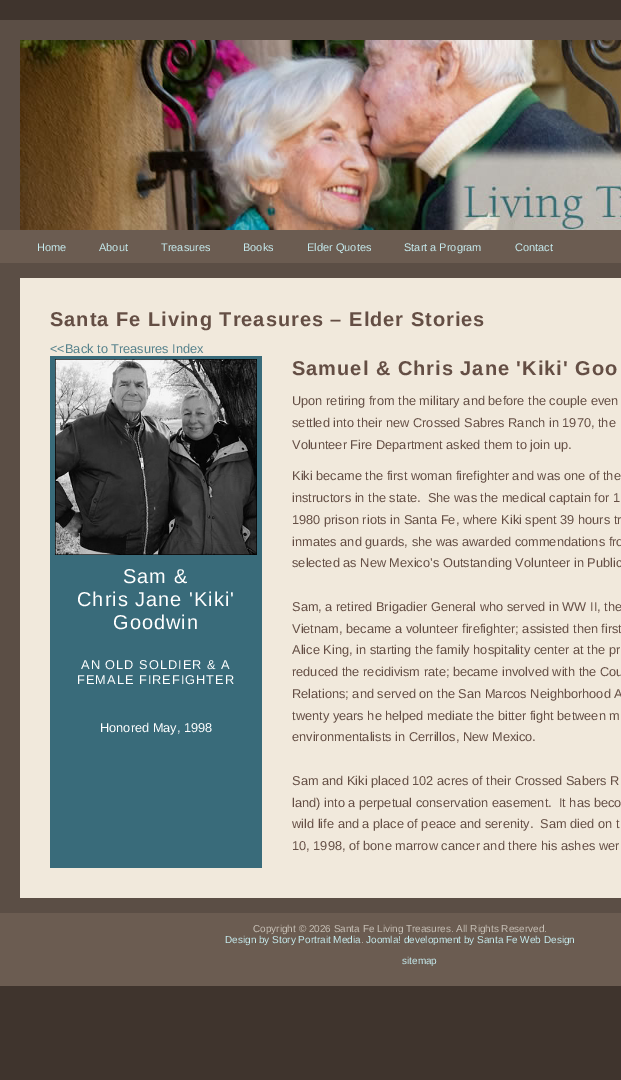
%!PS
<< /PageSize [621 1080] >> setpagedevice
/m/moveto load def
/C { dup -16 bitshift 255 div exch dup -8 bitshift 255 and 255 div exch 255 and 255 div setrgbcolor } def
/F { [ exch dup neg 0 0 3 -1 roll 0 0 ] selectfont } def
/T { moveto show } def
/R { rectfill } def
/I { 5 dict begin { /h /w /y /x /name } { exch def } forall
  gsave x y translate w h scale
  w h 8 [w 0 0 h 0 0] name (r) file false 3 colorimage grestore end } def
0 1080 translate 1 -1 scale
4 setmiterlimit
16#3F342D C
0 0 621 1080 R
16#5B4E45 C
0 20 621 893 R
(1.rgb) 20 40 601 190 I
16#6B5C51 C
0 230 621 33 R
/LiberationSans-Regular 11 F
16#C6EBEE C
(Home) 37 251 T
(About) 99 251 T
(Treasures) 161 251 T
(Books) 243 251 T
(Elder Quotes) 307 251 T
(Start a Program) 404 251 T
(Contact) 515 251 T
16#F1E9DC C
20 278 601 620 R
/LiberationSans-Bold 20 F
16#644E44 C
50 326 m 1 0 (Santa Fe Living Treasures – Elder Stories) ashow
/LiberationSans-Regular 12.8 F
16#56828C C
(<<Back to Treasures Index) 50 353 T
16#396B7A C
50 356 212 512 R
(2.rgb) 55 359 202 196 I
/LiberationSans-Regular 20 F
16#FFFFFF C
123 583 m 1 0 (Sam &) ashow
77 606 m 1 0 (Chris Jane 'Kiki') ashow
113 629 m 1 0 (Goodwin) ashow
/LiberationSans-Regular 12.8 F
81 669 m 1 0 (AN OLD SOLDIER & A) ashow
77 684 m 1 0 (FEMALE FIREFIGHTER) ashow
(Honored May, 1998) 100 732 T
/LiberationSans-Bold 20 F
16#644E44 C
292 375 m 1 0 (Samuel & Chris Jane 'Kiki' Goo) ashow
/LiberationSans-Regular 12.8 F
(Upon retiring from the military and before the couple even) 292 405 T
(settled into their new Crossed Sabres Ranch in 1970, the) 292 427 T
(Volunteer Fire Department asked them to join up.) 292 449 T
(Kiki became the first woman firefighter and was one of the) 292 480 T
(instructors in the state.  She was the medical captain for 1) 292 502 T
(1980 prison riots in Santa Fe, where Kiki spent 39 hours tr) 292 524 T
(inmates and guards, she was awarded commendations fro) 292 546 T
(selected as New Mexico’s Outstanding Volunteer in Public) 292 567 T
(Sam, a retired Brigadier General who served in WW II, the) 292 611 T
(Vietnam, became a volunteer firefighter; assisted then first) 292 633 T
(Alice King, in starting the family hospitality center at the pr) 292 654 T
(reduced the recidivism rate; became involved with the Cou) 292 676 T
(Relations; and served on the San Marcos Neighborhood A) 292 698 T
(twenty years he helped mediate the bitter fight between m) 292 720 T
(environmentalists in Cerrillos, New Mexico.) 292 741 T
(Sam and Kiki placed 102 acres of their Crossed Sabers R) 292 785 T
(land\) into a perpetual conservation easement.  It has beco) 292 807 T
(wild life and a place of peace and serenity.  Sam died on t) 292 828 T
(10, 1998, of bone marrow cancer and there his ashes wer) 292 850 T
16#6B5C51 C
0 913 621 73 R
/LiberationSans-Regular 10 F
16#C7C0B6 C
(Copyright © 2026 Santa Fe Living Treasures. All Rights Reserved.) 253 932 T
16#C6EBEE C
(Design by Story Portrait Media) 225 943 T
16#C7C0B6 C
(.) 361 943 T
16#C6EBEE C
(Joomla! development by Santa Fe Web Design) 366 943 T
(sitemap) 402 964 T
showpage
